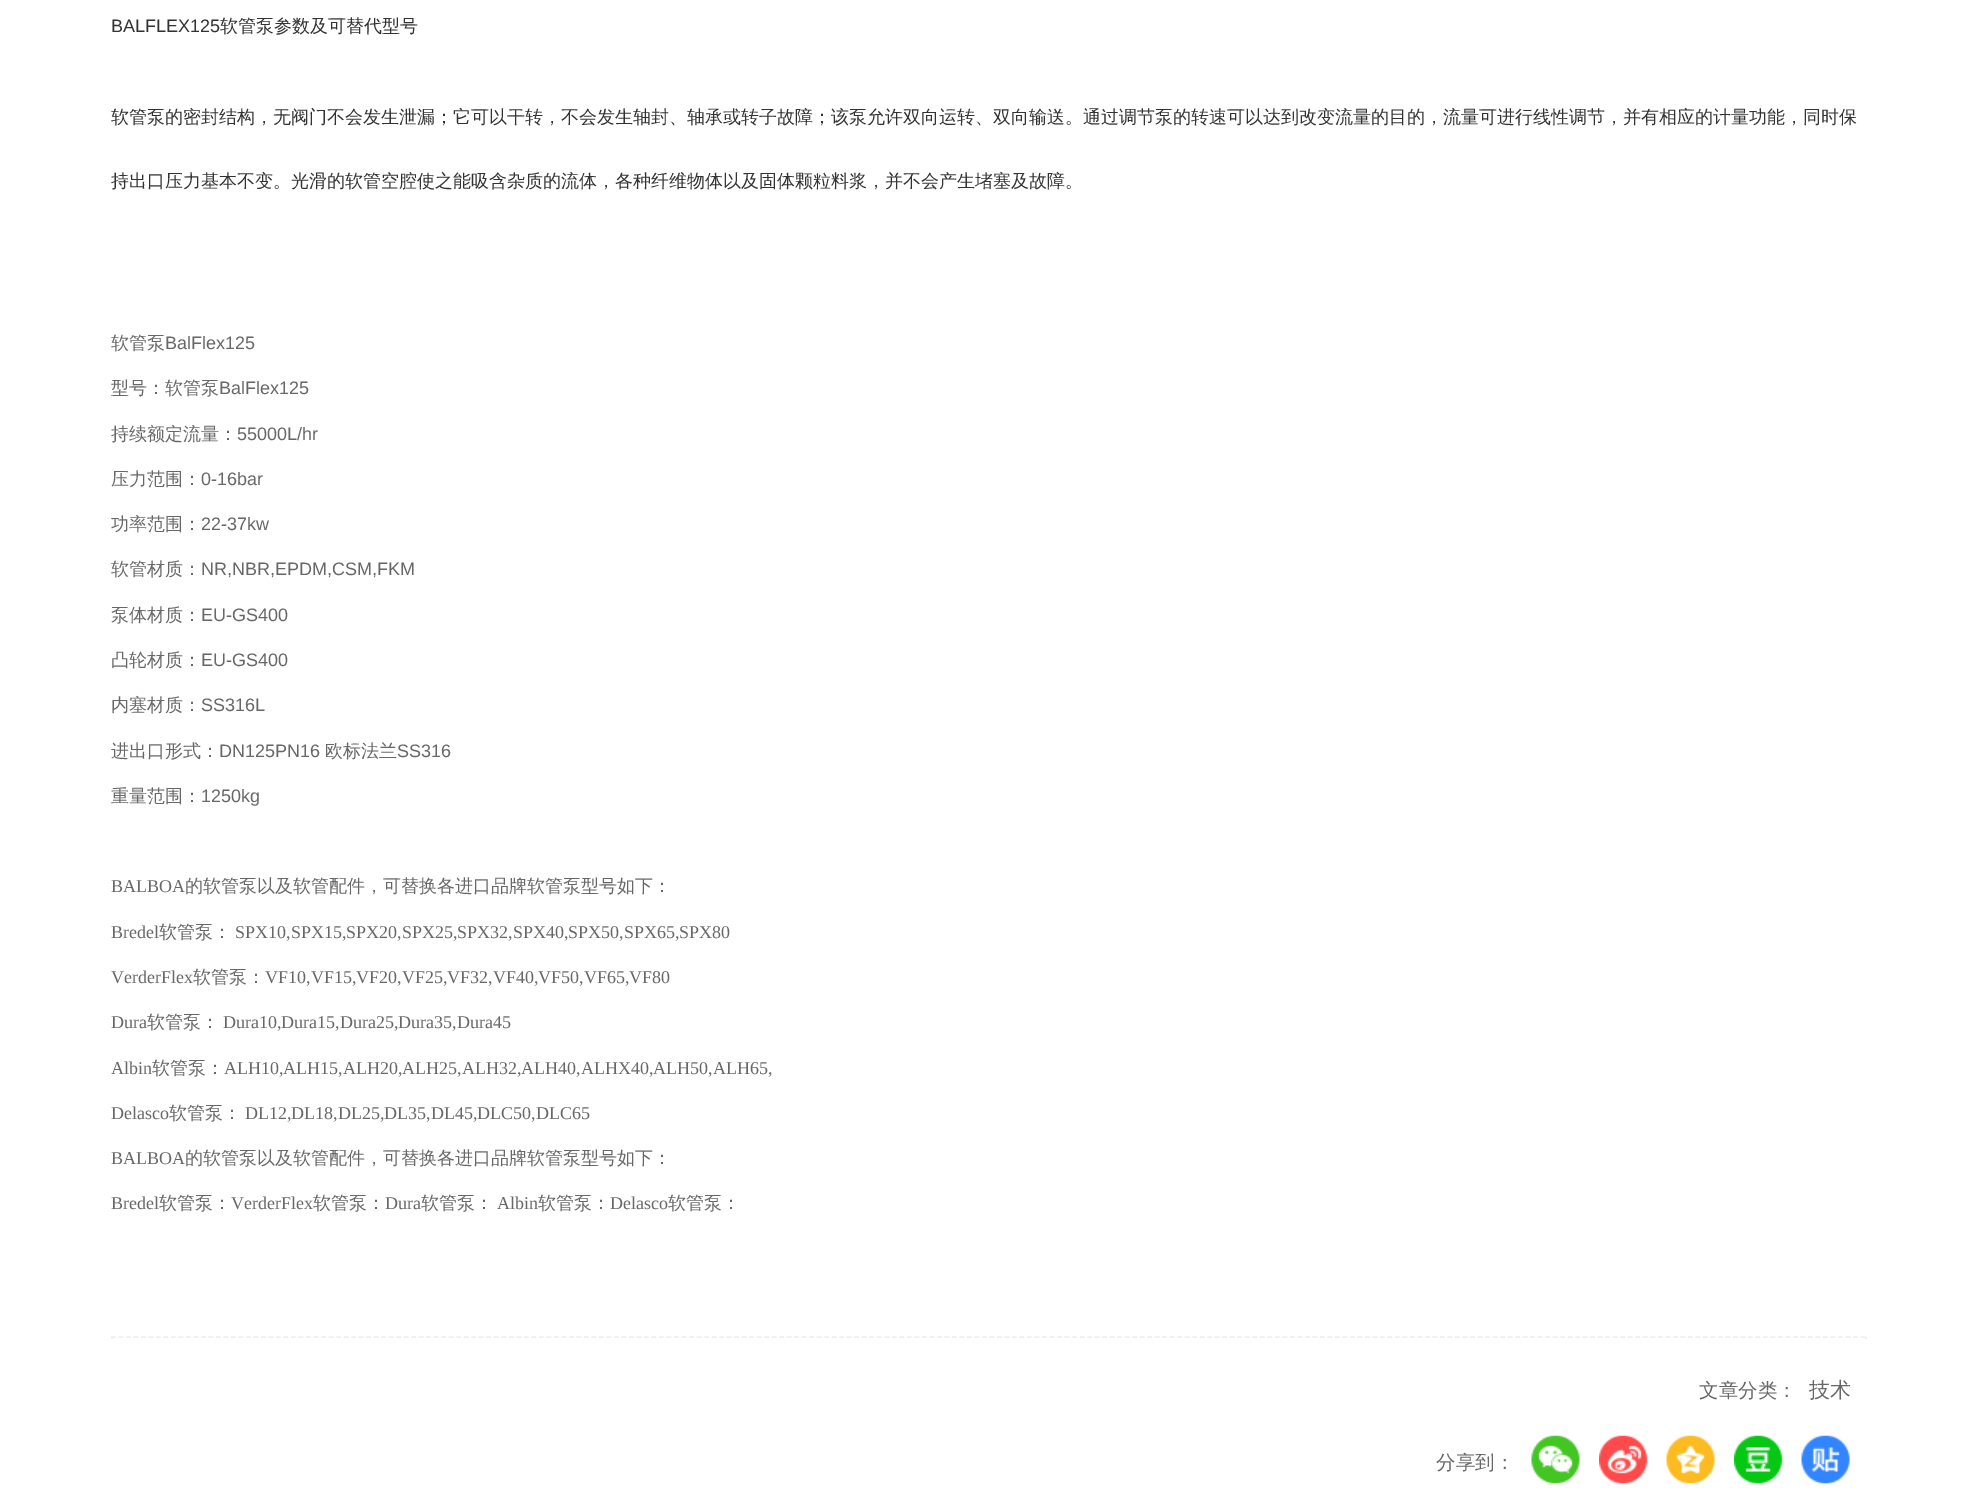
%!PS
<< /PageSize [1977 1506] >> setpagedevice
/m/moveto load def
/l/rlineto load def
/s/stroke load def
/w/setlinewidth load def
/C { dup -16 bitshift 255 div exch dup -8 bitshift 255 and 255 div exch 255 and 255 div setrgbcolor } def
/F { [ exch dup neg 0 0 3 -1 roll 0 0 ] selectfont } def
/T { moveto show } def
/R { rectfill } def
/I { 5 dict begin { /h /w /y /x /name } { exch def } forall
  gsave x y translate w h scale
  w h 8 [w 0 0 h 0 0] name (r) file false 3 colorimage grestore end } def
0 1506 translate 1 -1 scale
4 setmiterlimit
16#FFFFFF C
0 0 1977 1506 R
/LiberationSans-Regular 18 F
16#323232 C
(BALFLEX125) 111 32 T
/WenQuanYiZenHei-Medium 18 F
(软管泵参数及可替代型号) 220 32 T
(软管泵的密封结构，无阀门不会发生泄漏；它可以干转，不会发生轴封、轴承或转子故障；该泵允许双向运转、双向输送。通过调节泵的转速可以达到改变流量的目的，流量可进行线性调节，并有相应的计量功能，同时保) 111 123 T
(持出口压力基本不变。光滑的软管空腔使之能吸含杂质的流体，各种纤维物体以及固体颗粒料浆，并不会产生堵塞及故障。) 111 187 T
16#676767 C
(软管泵) 111 349 T
/LiberationSans-Regular 18 F
(BalFlex125) 165 349 T
/WenQuanYiZenHei-Medium 18 F
(型号：软管泵) 111 394 T
/LiberationSans-Regular 18 F
(BalFlex125) 219 394 T
/WenQuanYiZenHei-Medium 18 F
(持续额定流量：) 111 440 T
/LiberationSans-Regular 18 F
(55000L/hr) 237 440 T
/WenQuanYiZenHei-Medium 18 F
(压力范围：) 111 485 T
/LiberationSans-Regular 18 F
(0-16bar) 201 485 T
/WenQuanYiZenHei-Medium 18 F
(功率范围：) 111 530 T
/LiberationSans-Regular 18 F
(22-37kw) 201 530 T
/WenQuanYiZenHei-Medium 18 F
(软管材质：) 111 575 T
/LiberationSans-Regular 18 F
(NR,NBR,EPDM,CSM,FKM) 201 575 T
/WenQuanYiZenHei-Medium 18 F
(泵体材质：) 111 621 T
/LiberationSans-Regular 18 F
(EU-GS400) 201 621 T
/WenQuanYiZenHei-Medium 18 F
(凸轮材质：) 111 666 T
/LiberationSans-Regular 18 F
(EU-GS400) 201 666 T
/WenQuanYiZenHei-Medium 18 F
(内塞材质：) 111 711 T
/LiberationSans-Regular 18 F
(SS316L) 201 711 T
/WenQuanYiZenHei-Medium 18 F
(进出口形式：) 111 757 T
/LiberationSans-Regular 18 F
(DN125PN16) 219 757 T
/WenQuanYiZenHei-Medium 18 F
(欧标法兰) 325 757 T
/LiberationSans-Regular 18 F
(SS316) 397 757 T
/WenQuanYiZenHei-Medium 18 F
(重量范围：) 111 802 T
/LiberationSans-Regular 18 F
(1250kg) 201 802 T
/LiberationSerif-Regular 18 F
(BALBOA) 111 892 T
/WenQuanYiZenHei-Medium 18 F
(的软管泵以及软管配件，可替换各进口品牌软管泵型号如下：) 185 892 T
/LiberationSerif-Regular 18 F
(Bredel) 111 938 T
/WenQuanYiZenHei-Medium 18 F
(软管泵：) 159 938 T
/LiberationSerif-Regular 18 F
(SPX10,SPX15,SPX20,SPX25,SPX32,SPX40,SPX50,SPX65,SPX80) 235 938 T
(VerderFlex) 111 983 T
/WenQuanYiZenHei-Medium 18 F
(软管泵：) 193 983 T
/LiberationSerif-Regular 18 F
(VF10,VF15,VF20,VF25,VF32,VF40,VF50,VF65,VF80) 265 983 T
(Dura) 111 1028 T
/WenQuanYiZenHei-Medium 18 F
(软管泵：) 147 1028 T
/LiberationSerif-Regular 18 F
(Dura10,Dura15,Dura25,Dura35,Dura45) 223 1028 T
(Albin) 111 1074 T
/WenQuanYiZenHei-Medium 18 F
(软管泵：) 152 1074 T
/LiberationSerif-Regular 18 F
(ALH10,ALH15,ALH20,ALH25,ALH32,ALH40,ALHX40,ALH50,ALH65,) 224 1074 T
(Delasco) 111 1119 T
/WenQuanYiZenHei-Medium 18 F
(软管泵：) 169 1119 T
/LiberationSerif-Regular 18 F
(DL12,DL18,DL25,DL35,DL45,DLC50,DLC65) 245 1119 T
(BALBOA) 111 1164 T
/WenQuanYiZenHei-Medium 18 F
(的软管泵以及软管配件，可替换各进口品牌软管泵型号如下：) 185 1164 T
/LiberationSerif-Regular 18 F
(Bredel) 111 1209 T
/WenQuanYiZenHei-Medium 18 F
(软管泵：) 159 1209 T
/LiberationSerif-Regular 18 F
(VerderFlex) 231 1209 T
/WenQuanYiZenHei-Medium 18 F
(软管泵：) 313 1209 T
/LiberationSerif-Regular 18 F
(Dura) 385 1209 T
/WenQuanYiZenHei-Medium 18 F
(软管泵：) 421 1209 T
/LiberationSerif-Regular 18 F
(Albin) 497 1209 T
/WenQuanYiZenHei-Medium 18 F
(软管泵：) 538 1209 T
/LiberationSerif-Regular 18 F
(Delasco) 610 1209 T
/WenQuanYiZenHei-Medium 18 F
(软管泵：) 668 1209 T
16#F0EFEF C
1.5 w
[4.5 3.01] 0 setdash
111 1337 m 1755 0 l s
1865 1337 2 2 R
111 1337 2 2 R
/WenQuanYiZenHei-Medium 19.5 F
16#676767 C
(文章分类：) 1699 1397 T
/WenQuanYiZenHei-Medium 21 F
(技术) 1809 1397 T
/WenQuanYiZenHei-Medium 19.5 F
(分享到：) 1436 1469 T
(1.rgb) 1531 1435 49 49 I
(2.rgb) 1599 1435 49 49 I
(3.rgb) 1666 1435 49 49 I
(4.rgb) 1734 1435 49 49 I
(5.rgb) 1801 1435 49 49 I
showpage
